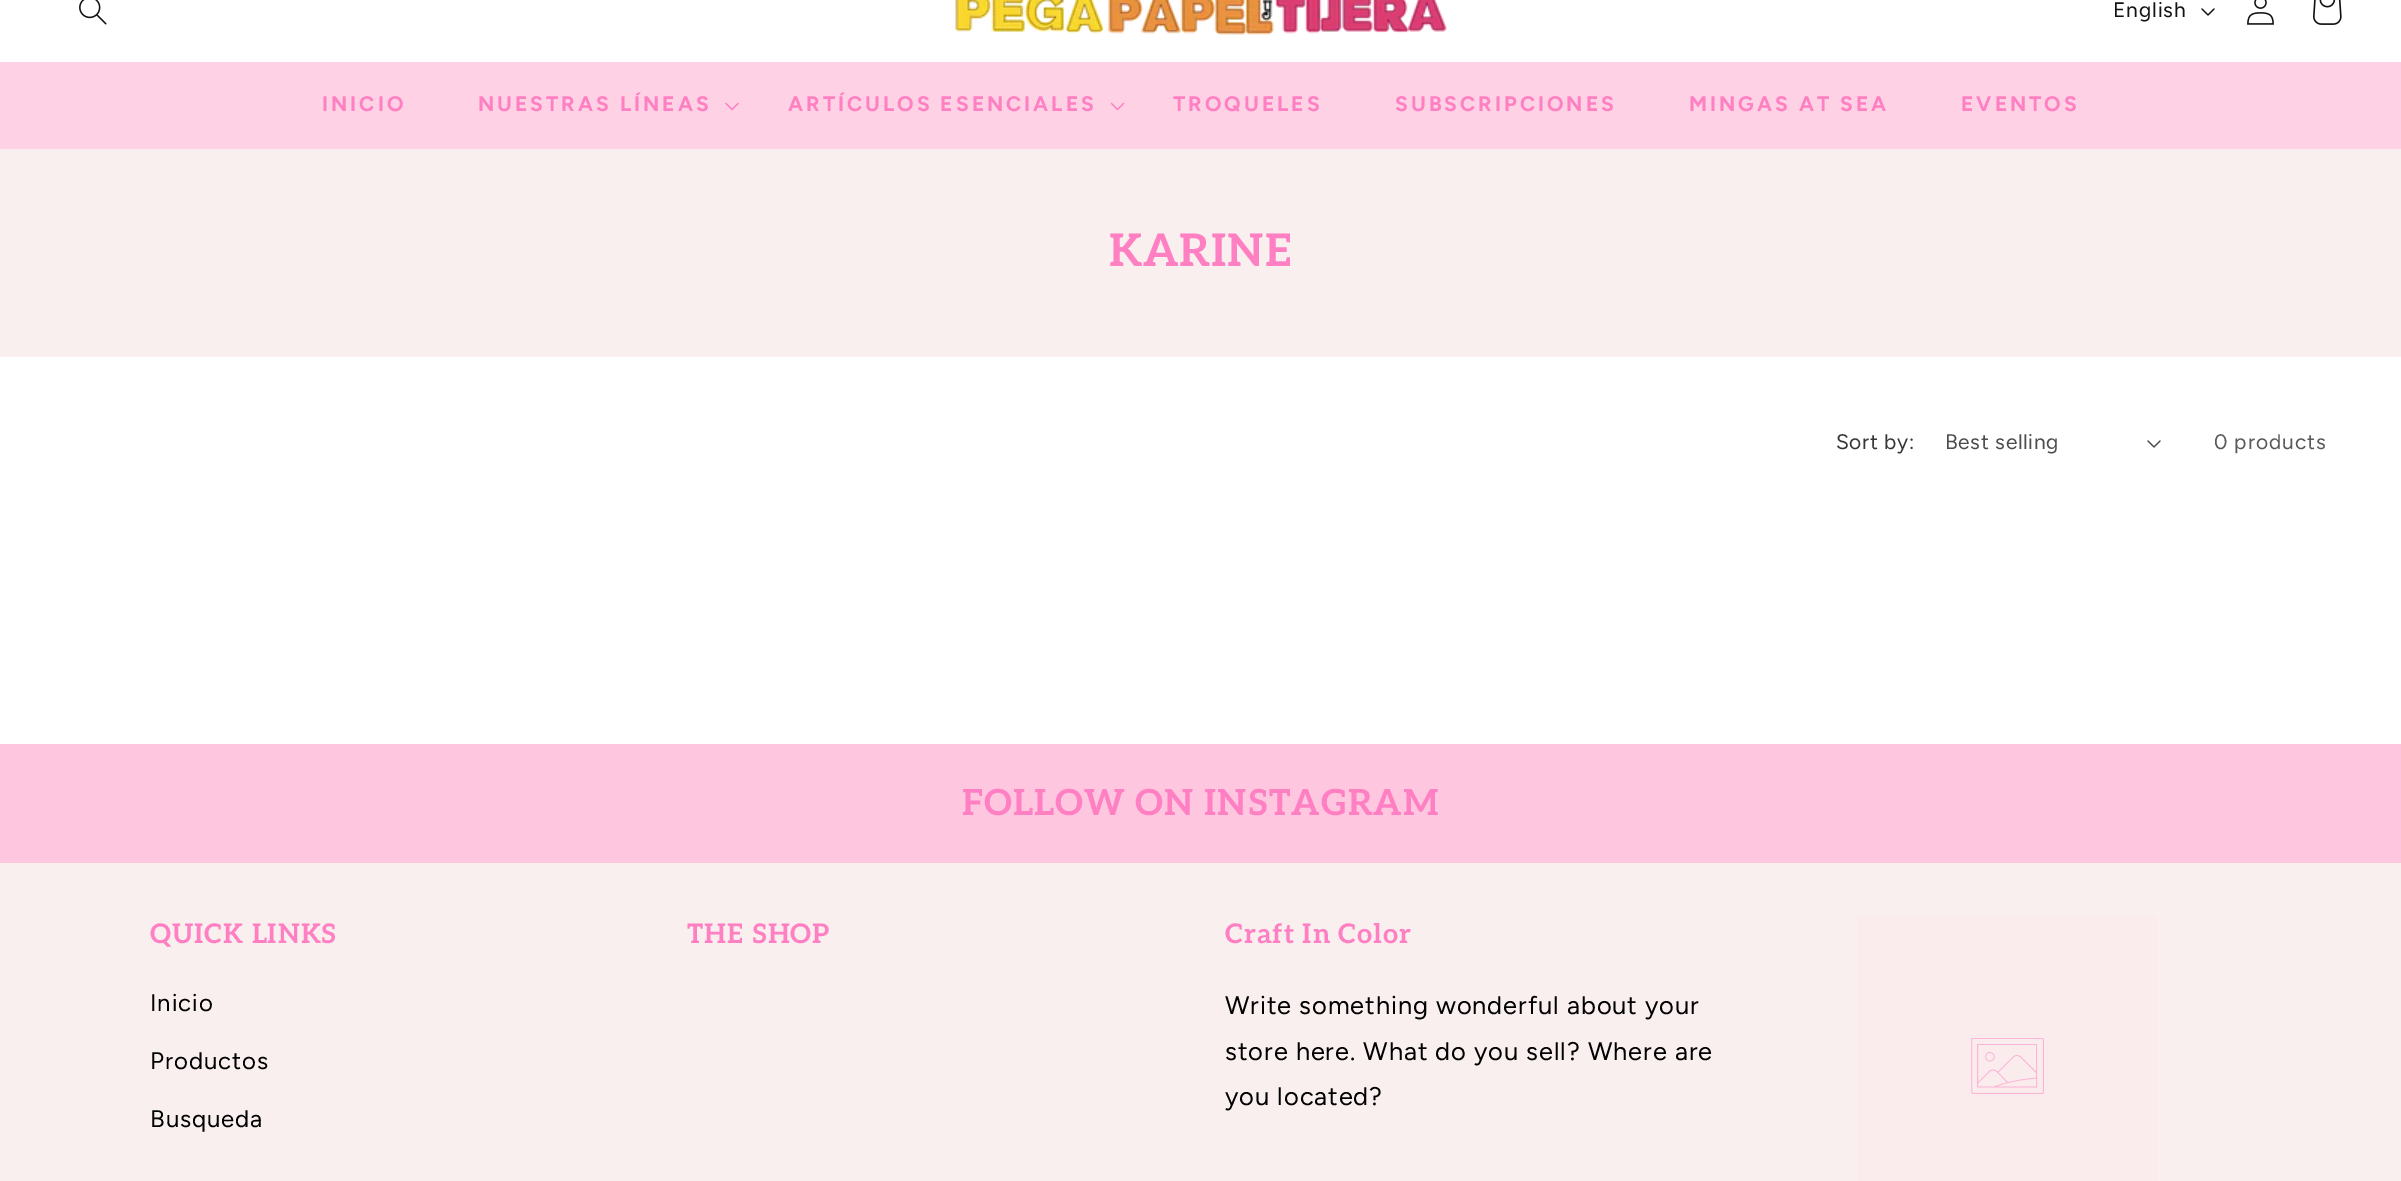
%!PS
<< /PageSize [2401 1181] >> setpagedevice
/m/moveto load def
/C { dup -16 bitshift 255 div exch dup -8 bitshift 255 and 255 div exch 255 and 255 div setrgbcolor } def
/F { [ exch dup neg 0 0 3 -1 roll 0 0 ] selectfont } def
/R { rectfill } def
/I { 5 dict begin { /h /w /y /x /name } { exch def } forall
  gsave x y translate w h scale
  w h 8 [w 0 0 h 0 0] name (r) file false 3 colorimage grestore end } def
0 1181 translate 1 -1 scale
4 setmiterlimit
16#FFFFFF C
0 0 2401 1181 R
(1.rgb) 79 0 28 25 I
(2.rgb) 955 0 492 35 I
/Figtree-Regular 21 F
16#121212 C
2113 17 m .9 0 (English) ashow
(3.rgb) 2201 8 14 8 I
(4.rgb) 2247 0 27 25 I
(5.rgb) 2313 0 29 25 I
16#FFD1E4 C
0 62 2401 87 R
/Figtree-Bold 21 F
16#FF7FC3 C
322 111 m 3 0 (INICIO) ashow
478 111 m 3 0 (NUESTRAS LÍNEAS) ashow
(6.rgb) 725 102 14 9 I
788 111 m 3 0 (ARTÍCULOS ESENCIALES) ashow
(7.rgb) 1110 102 15 9 I
1173 111 m 3 0 (TROQUELES) ashow
1395 111 m 3 0 (SUBSCRIPCIONES) ashow
1689 111 m 3 0 (MINGAS AT SEA) ashow
1961 111 m 3 0 (EVENTOS) ashow
16#FAEFEF C
0 149 2401 208 R
/Aleo-Bold 45 F
16#FF7FC3 C
1109 266 m .9 0 (KARINE) ashow
/Figtree-Regular 21 F
16#363636 C
1836 449 m .6 0 (Sort by:) ashow
16#4D4D4D C
1945 449 m .6 0 (Best selling) ashow
(8.rgb) 2147 440 14 8 I
16#595959 C
2214 449 m .9 0 (0 products) ashow
16#FFC7DF C
0 744 2401 119 R
/Aleo-Bold 36 F
16#FF7FC3 C
962 815 m .9 0 (FOLLOW ON INSTAGRAM) ashow
16#FAEFEF C
0 863 2401 318 R
/Aleo-Bold 27 F
16#FF7FC3 C
150 943 m .9 0 (QUICK LINKS) ashow
/Figtree-Regular 24 F
16#000000 C
150 1011 m .9 0 (Inicio) ashow
150 1069 m .9 0 (Productos) ashow
150 1127 m .9 0 (Busqueda) ashow
/Aleo-Bold 27 F
16#FF7FC3 C
687 943 m .9 0 (THE SHOP) ashow
1225 943 m .9 0 (Craft In Color) ashow
/Figtree-Regular 25.5 F
16#000000 C
1225 1014 m .9 0 (Write something wonderful about your) ashow
1225 1060 m .9 0 (store here. What do you sell? Where are) ashow
1225 1105 m .9 0 (you located?) ashow
16#FAEBED C
1857 917 300 264 R
(9.rgb) 1971 1038 73 56 I
showpage
